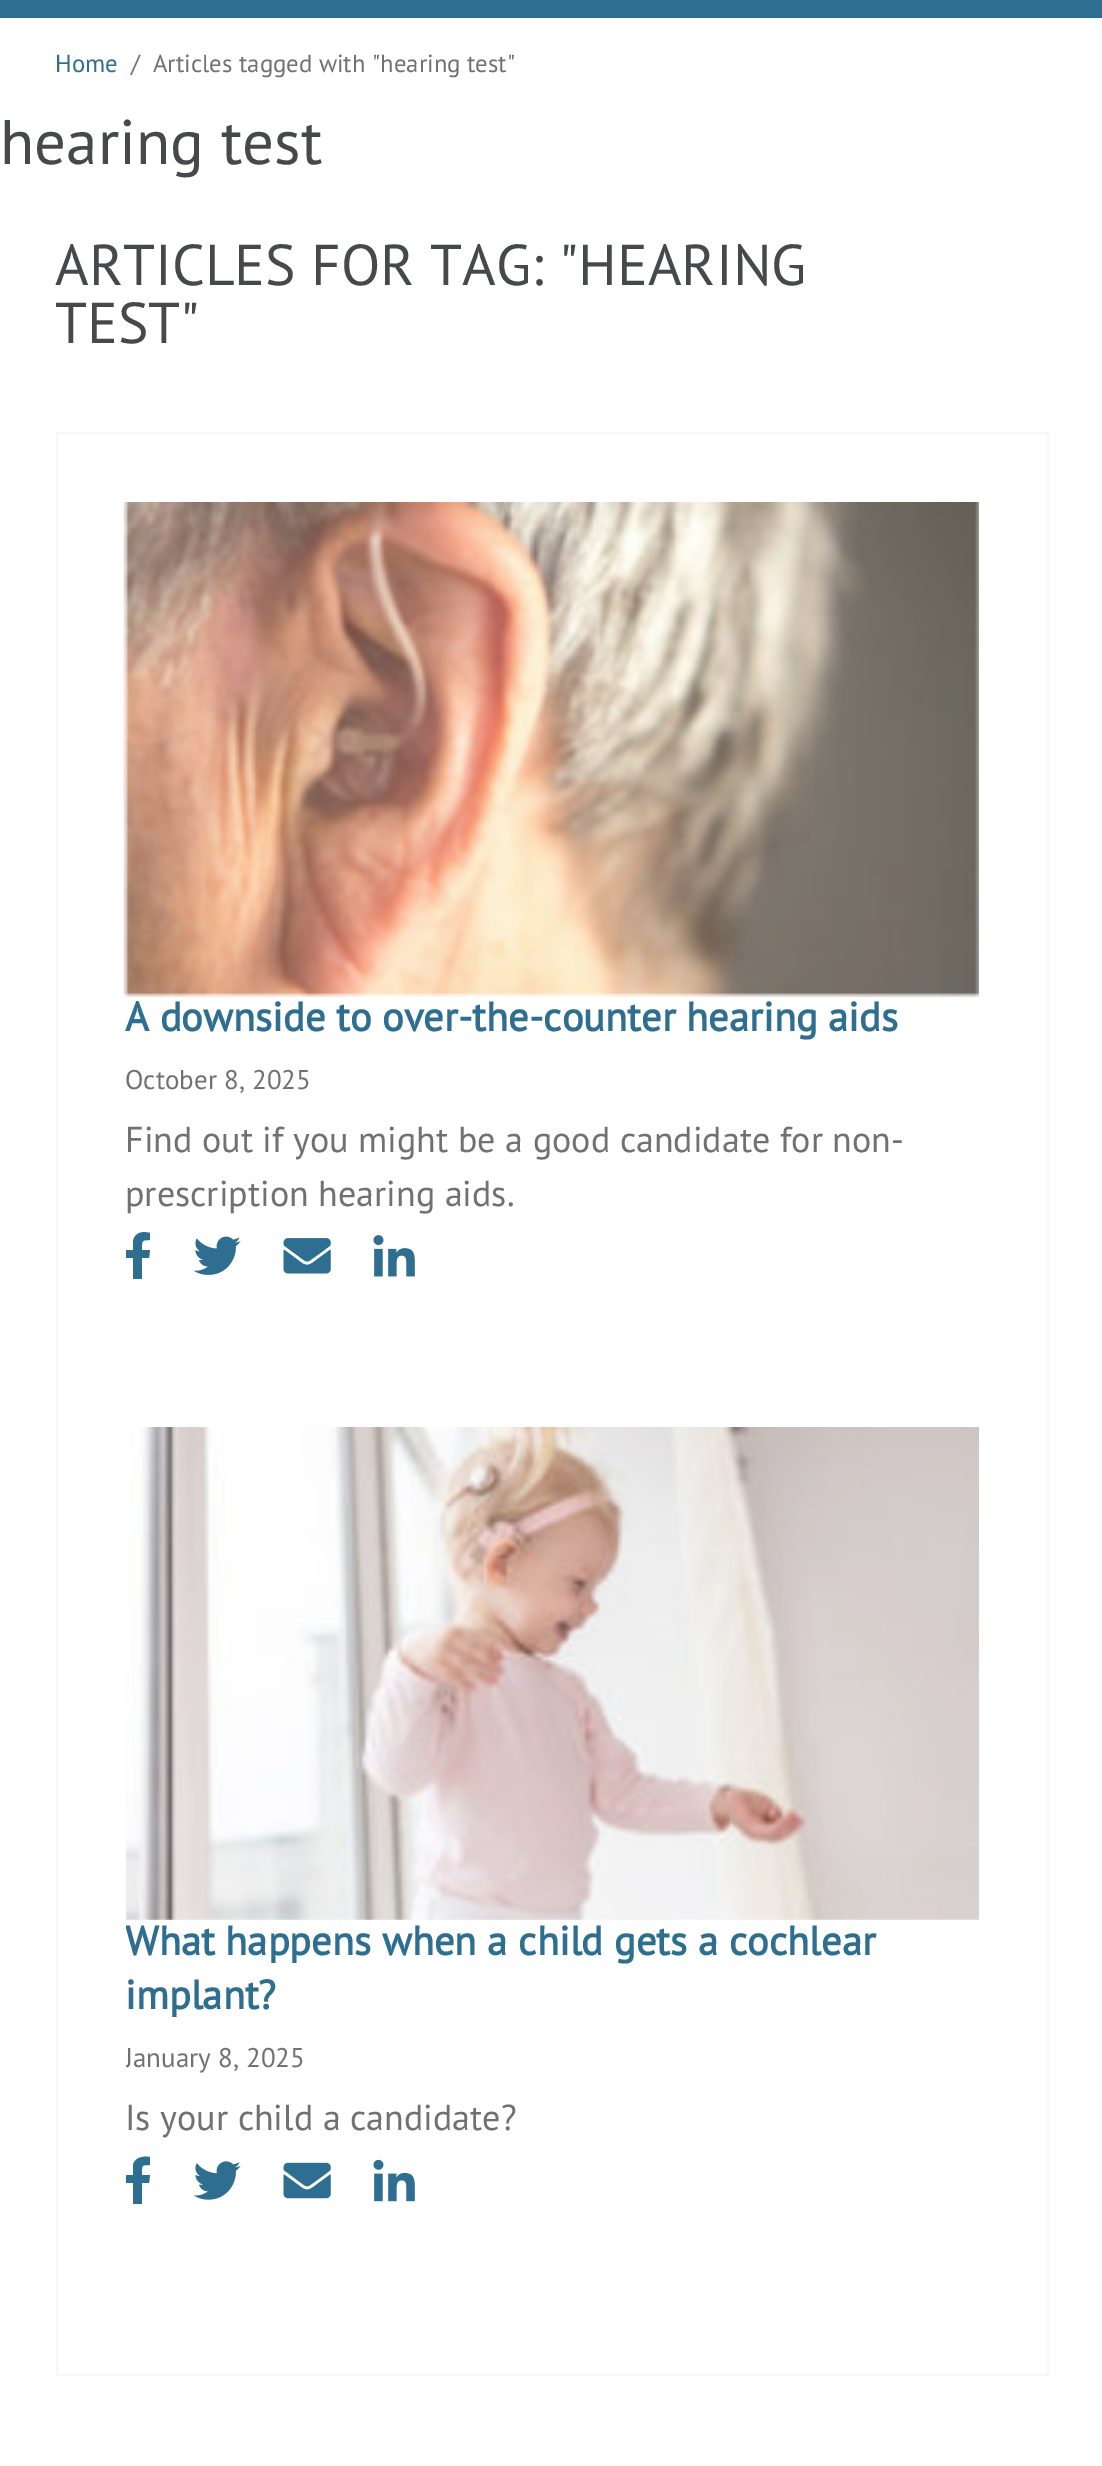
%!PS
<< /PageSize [1102 2466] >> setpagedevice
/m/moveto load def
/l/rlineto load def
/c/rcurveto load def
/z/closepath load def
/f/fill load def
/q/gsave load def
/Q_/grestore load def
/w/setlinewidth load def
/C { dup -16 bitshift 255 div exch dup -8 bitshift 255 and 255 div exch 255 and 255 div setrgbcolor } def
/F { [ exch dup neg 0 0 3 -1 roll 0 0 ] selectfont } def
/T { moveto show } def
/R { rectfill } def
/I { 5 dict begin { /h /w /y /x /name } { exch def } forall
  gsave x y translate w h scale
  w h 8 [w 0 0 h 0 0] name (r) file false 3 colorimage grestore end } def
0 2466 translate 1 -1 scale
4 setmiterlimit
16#FFFFFF C
0 0 1102 2466 R
16#2E6F91 C
0 0 1102 18 R
/PTSans-Regular 24.75 F
(Home) 55 72 T
16#717171 C
(/) 131 72 T
(Articles tagged with "hearing test") 153 72 T
/PTSans-Regular 63 F
16#46494C C
(hearing test) 0 164 T
/PTSans-Regular 57.6 F
(ARTICLES FOR TAG: "HEARING) 55 285 T
(TEST") 55 343 T
16#F8F8F8 C
2 w
57 433 991 1942 rectstroke
(1.rgb) 123 502 856 495 I
/PTSans-Bold 40.5 F
16#2E6F91 C
(A downside to over-the-counter hearing aids) 125 1031 T
/PTSans-Regular 27 F
16#717171 C
(October 8, 2025) 125 1089 T
/PTSans-Regular 36 F
(Find out if you might be a good candidate for non-) 125 1152 T
(prescription hearing aids.) 125 1206 T
16#2E6F91 C
133 1279 m 0 -21 l -7 0 l 0 -8 l 7 0 l 0 -9 l 2 -9 10 -10 17 -8 c 0 7 l -9 0 -8 1 -8 10 c 8 0 l -1 8 l -7 0 l 0 21 l z f
(2.rgb) 193 1236 48 39 I
(3.rgb) 283 1238 48 36 I
(4.rgb) 373 1235 42 42 I
(5.rgb) 125 1427 854 493 I
q
126 1919 853 342 rectclip
/PTSans-Bold 40.5 F
(What happens when a child gets a cochlear) 125 1955 T
Q_
/PTSans-Bold 40.5 F
(implant?) 125 2009 T
q
126 1919 853 342 rectclip
/PTSans-Regular 27 F
16#717171 C
(January 8, 2025) 125 2067 T
Q_
/PTSans-Regular 36 F
16#717171 C
(Is your child a candidate?) 125 2130 T
16#2E6F91 C
133 2204 m 0 -21 l -7 0 l 0 -8 l 7 0 l 0 -10 l 2 -8 10 -9 17 -8 c 0 8 l -9 0 -8 0 -8 10 c 8 0 l -1 8 l -7 0 l 0 21 l z f
(6.rgb) 193 2161 48 39 I
(7.rgb) 283 2162 48 37 I
(8.rgb) 373 2159 42 43 I
showpage
